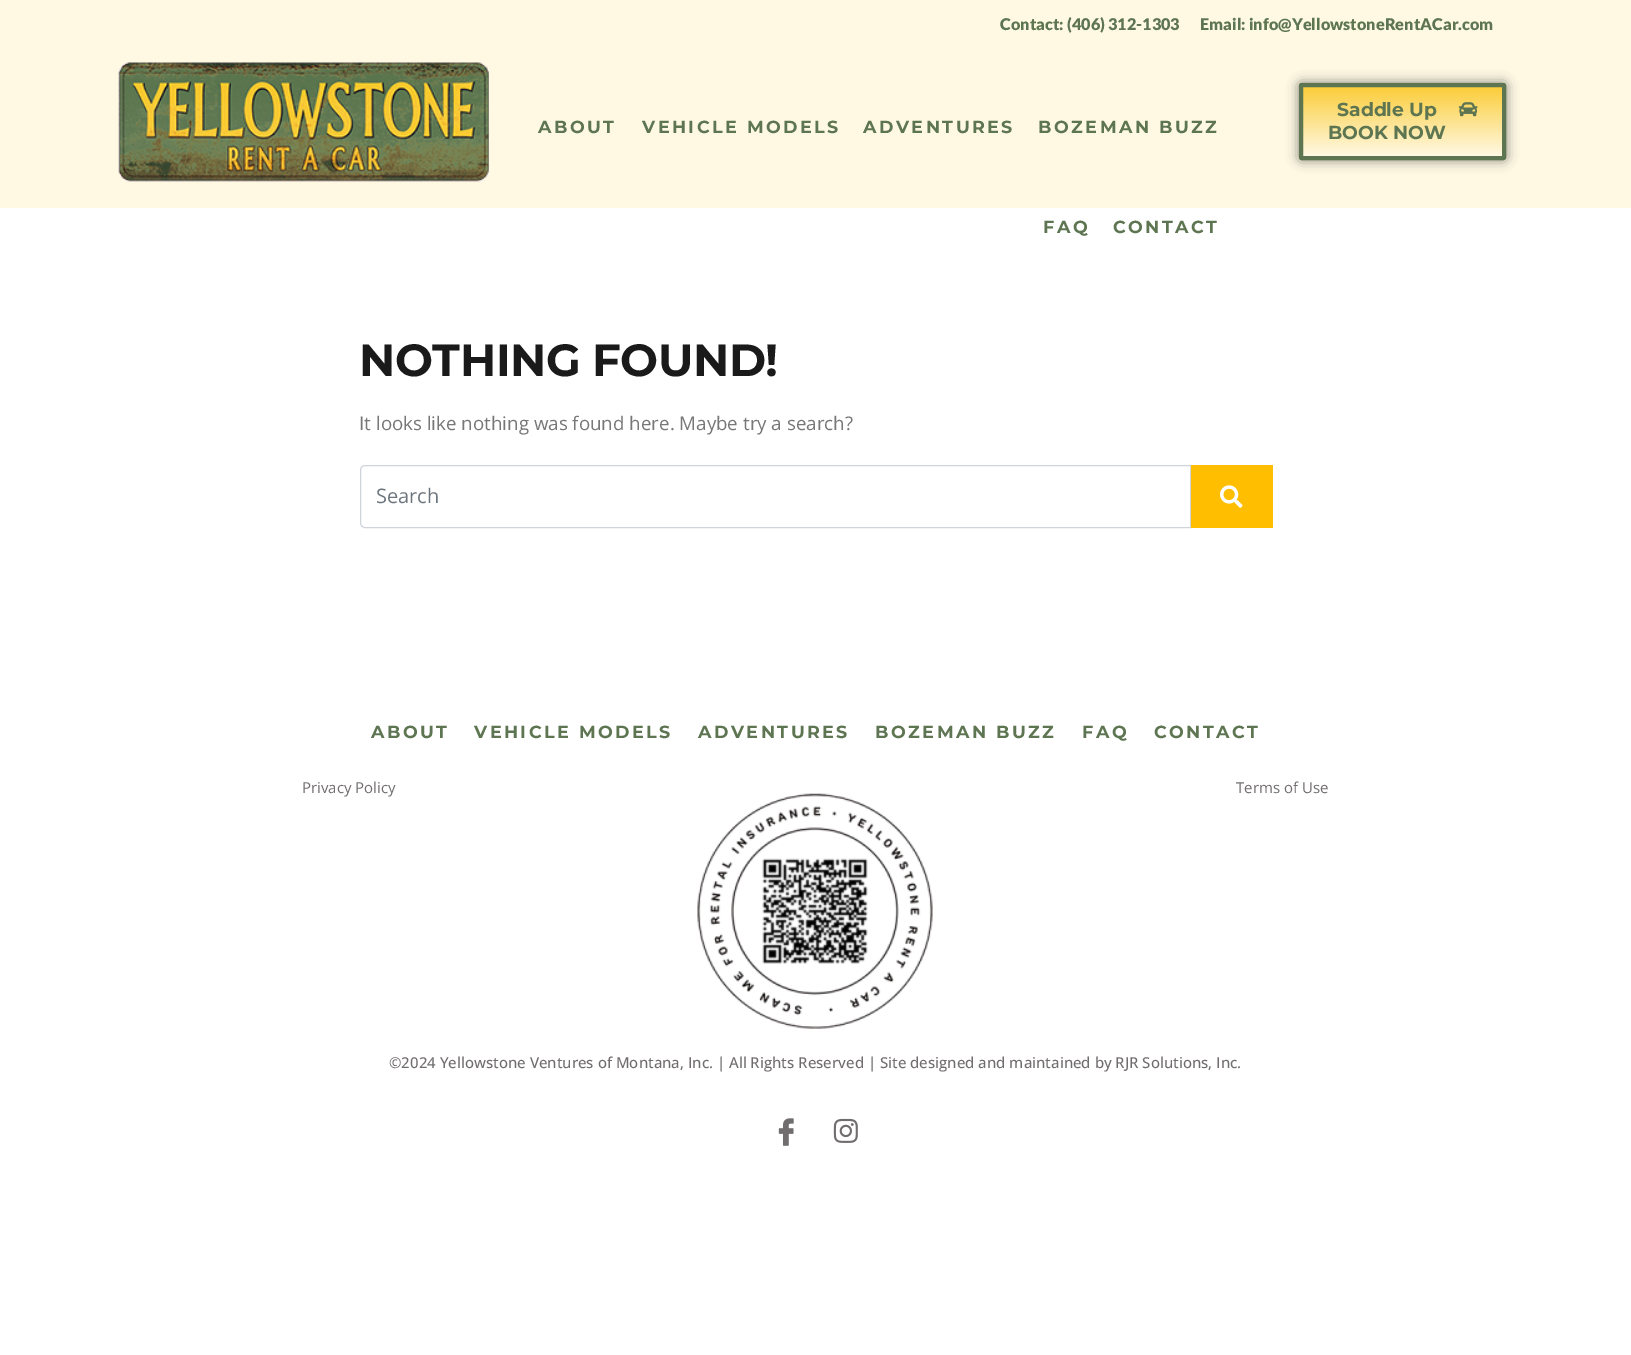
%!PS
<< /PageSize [1631 1355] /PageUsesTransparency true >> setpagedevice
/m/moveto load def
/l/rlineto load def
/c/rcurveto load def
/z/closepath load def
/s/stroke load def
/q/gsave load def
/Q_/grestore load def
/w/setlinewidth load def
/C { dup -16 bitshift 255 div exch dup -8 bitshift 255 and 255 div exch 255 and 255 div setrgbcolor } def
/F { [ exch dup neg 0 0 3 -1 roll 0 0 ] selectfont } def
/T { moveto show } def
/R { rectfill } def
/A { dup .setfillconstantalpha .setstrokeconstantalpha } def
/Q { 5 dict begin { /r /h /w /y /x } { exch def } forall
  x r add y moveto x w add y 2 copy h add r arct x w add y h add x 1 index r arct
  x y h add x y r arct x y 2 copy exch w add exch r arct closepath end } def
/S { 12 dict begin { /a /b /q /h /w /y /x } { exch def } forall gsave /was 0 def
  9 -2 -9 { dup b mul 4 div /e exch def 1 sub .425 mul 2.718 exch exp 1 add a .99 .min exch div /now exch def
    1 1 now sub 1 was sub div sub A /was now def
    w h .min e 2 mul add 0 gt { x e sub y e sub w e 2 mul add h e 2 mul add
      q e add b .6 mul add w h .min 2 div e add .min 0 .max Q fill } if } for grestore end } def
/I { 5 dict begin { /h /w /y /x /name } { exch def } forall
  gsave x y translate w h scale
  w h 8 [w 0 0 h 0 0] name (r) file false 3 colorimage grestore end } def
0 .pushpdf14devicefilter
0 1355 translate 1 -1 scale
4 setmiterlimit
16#FFFFFF C
0 0 1631 1355 R
16#FFF9E4 C
0 0 1631 208 R
/Lato-Black 16.25 F
16#5D7551 C
(Contact: \(406\) 312-1303) 1000 30 T
(Email: info@YellowstoneRentACar.com) 1200 30 T
(1.rgb) 118 62 371 120 I
/Montserrat-Bold 17.5 F
538 133 m 2.5 0 (ABOUT) ashow
642 133 m 2.5 0 (VEHICLE MODELS) ashow
863 133 m 2.5 0 (ADVENTURES) ashow
1038 133 m 2.5 0 (BOZEMAN BUZZ) ashow
1043 233 m 2.5 0 (FAQ) ashow
1113 233 m 2.5 0 (CONTACT) ashow
16#000000 C
1299 83 207 77 2.5 6 .5 S
q 1303 87 m 199 0 l 0 69 l -199 0 l z clip newpath
<< /ShadingType 2 /ColorSpace /DeviceRGB /Coords [1403 86 1403 156] /Extend [true true] /Function << /FunctionType 2 /Domain [0 1] /C0 [.984 .8 .216] /C1 [1 .976 .894] /N 1 >> >> shfill Q_
16#5D7550 C
4 w
1301 85 203 73 .5 Q s
/Montserrat-Bold 18.75 F
16#5D7551 C
(Saddle Up) 1337 116 T
(BOOK NOW) 1328 139 T
(2.rgb) 1458 102 20 15 I
/Montserrat-Bold 45 F
16#1A1A1A C
359 376 m -.5 0 (NOTHING FOUND!) ashow
/OpenSans-Regular 18.75 F
16#777777 C
(It looks like nothing was found here. Maybe try a search?) 359 430 T
16#CED4DA C
1 w
365 465.5 m 825.5 0 l 0 62 l -825.5 0 l -2.5 0 -4.5 -2 -4.5 -4.5 c 0 -53 l 0 -2.5 2 -4.5 4.5 -4.5 c z s
/OpenSans-Regular 20 F
16#6C757D C
(Search) 376 503 T
16#FFBF00 C
1191 465 82 63 R
(3.rgb) 1220 485 23 23 I
/Montserrat-Bold 17.5 F
16#5D7551 C
371 738 m 2.5 0 (ABOUT) ashow
474 738 m 2.5 0 (VEHICLE MODELS) ashow
698 738 m 2.5 0 (ADVENTURES) ashow
875 738 m 2.5 0 (BOZEMAN BUZZ) ashow
1082 738 m 2.5 0 (FAQ) ashow
1154 738 m 2.5 0 (CONTACT) ashow
/OpenSans-Regular 15 F
16#716D6E C
(Privacy Policy) 302 793 T
(Terms of Use) 1236 793 T
(4.rgb) 697 793 236 236 I
/OpenSans-Medium 15 F
(©2024 Yellowstone Ventures of Montana, Inc. | All Rights Reserved | Site designed and maintained by RJR Solutions, Inc.) 389 1068 T
(5.rgb) 778 1118 16 28 I
(6.rgb) 833 1118 25 25 I
.poppdf14devicefilter showpage
